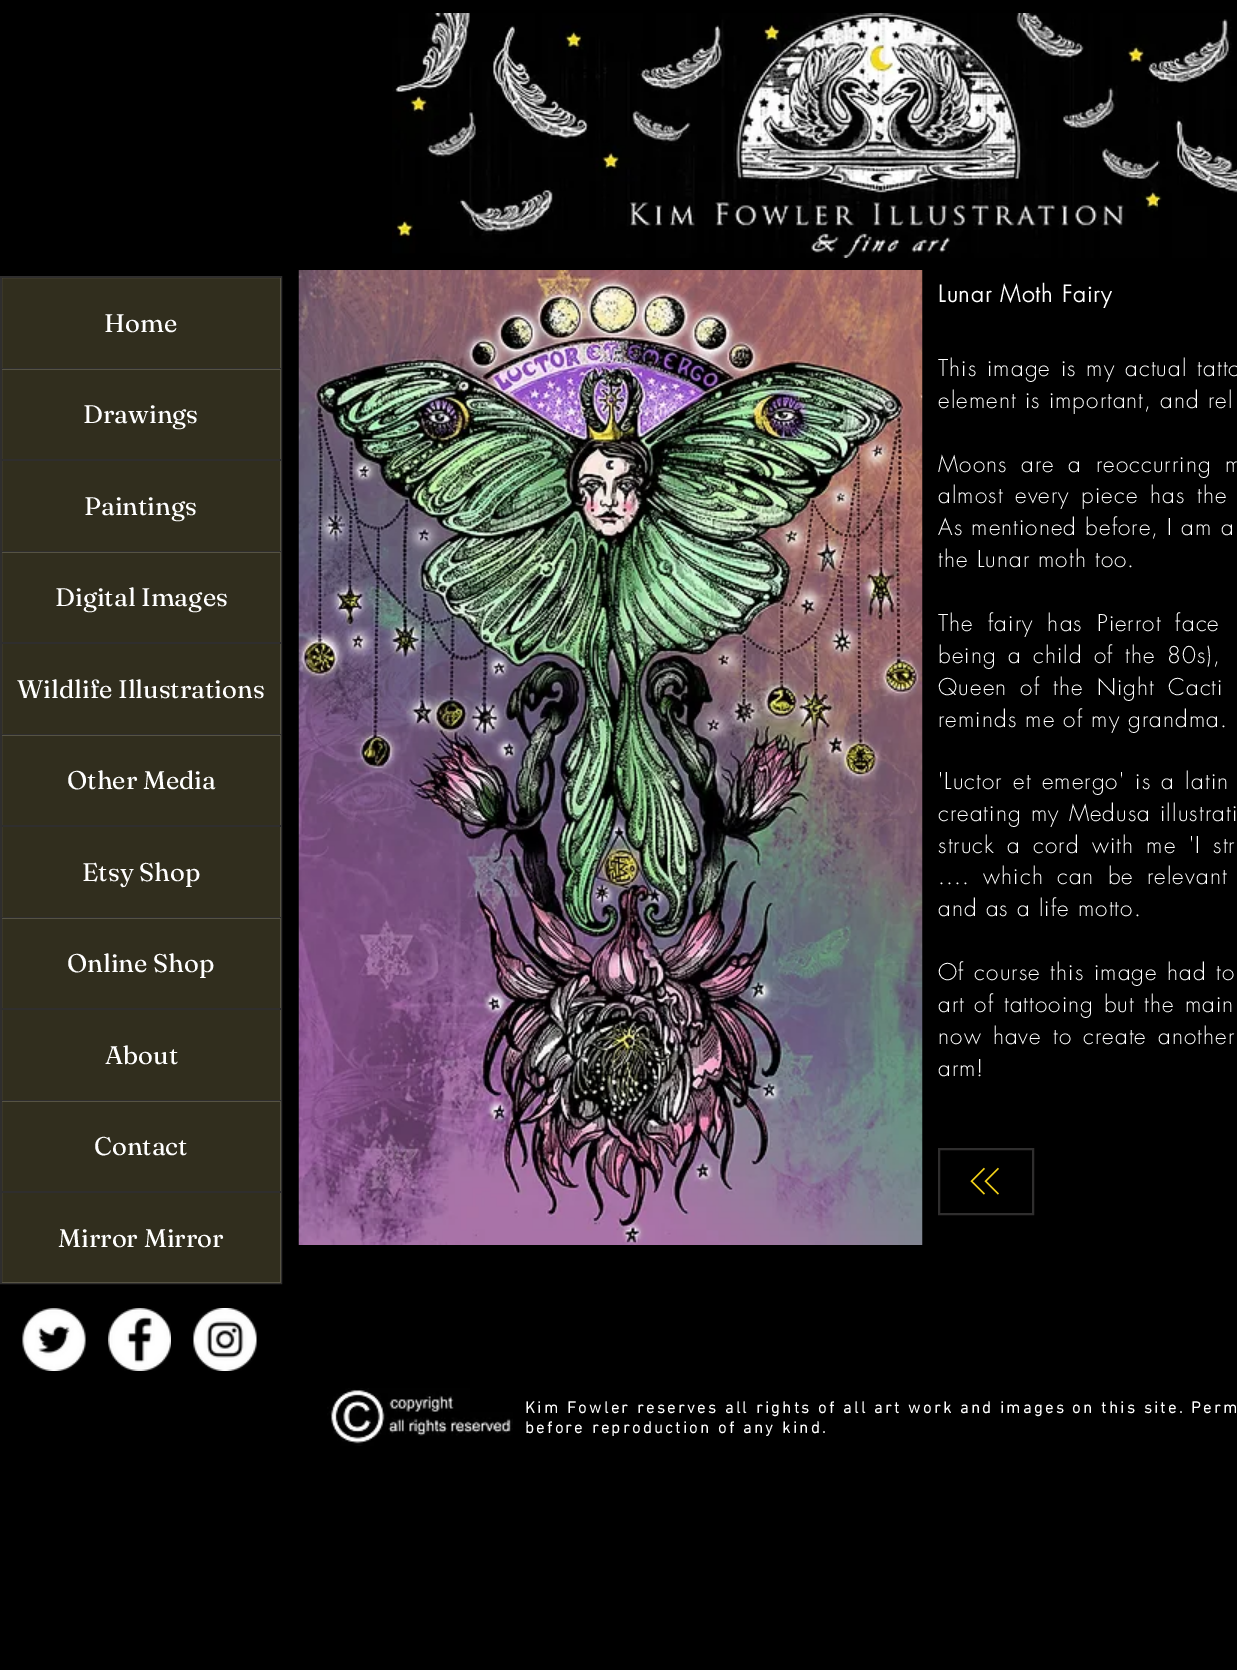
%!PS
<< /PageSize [1237 1670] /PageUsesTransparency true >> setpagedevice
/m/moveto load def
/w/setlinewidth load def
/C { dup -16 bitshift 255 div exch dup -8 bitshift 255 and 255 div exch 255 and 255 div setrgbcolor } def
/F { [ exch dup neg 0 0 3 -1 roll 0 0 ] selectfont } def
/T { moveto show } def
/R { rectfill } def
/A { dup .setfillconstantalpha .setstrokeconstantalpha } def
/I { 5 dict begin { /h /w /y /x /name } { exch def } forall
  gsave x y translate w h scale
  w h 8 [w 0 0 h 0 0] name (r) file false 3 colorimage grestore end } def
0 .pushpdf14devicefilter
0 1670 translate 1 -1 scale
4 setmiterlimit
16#000000 C
0 0 1237 1670 R
(1.rgb) 392 13 845 245 I
16#2F2E2E C
2 w
1 277 280 1006 rectstroke
2 368 279 2 R
0.2 A
16#F3E598 C
2 278 279 90 R
/Fraunces-Regular 25.5 F
1 A
16#FFFFFF C
(Home) 104 332 T
16#2F2E2E C
2 459 279 2 R
0.2 A
16#F3E598 C
2 369 279 90 R
1 A
16#FFFFFF C
(Drawings) 83 423 T
16#2F2E2E C
2 551 279 2 R
0.2 A
16#F3E598 C
2 461 279 90 R
1 A
16#FFFFFF C
(Paintings) 84 515 T
16#2F2E2E C
2 642 279 2 R
0.2 A
16#F3E598 C
2 552 279 90 R
1 A
16#FFFFFF C
(Digital Images) 55 606 T
16#2F2E2E C
2 734 279 2 R
0.2 A
16#F3E598 C
2 644 279 90 R
1 A
16#FFFFFF C
(Wildlife Illustrations) 17 698 T
16#2F2E2E C
2 825 279 2 R
0.2 A
16#F3E598 C
2 735 279 90 R
1 A
16#FFFFFF C
(Other Media) 67 789 T
16#2F2E2E C
2 917 279 2 R
0.2 A
16#F3E598 C
2 827 279 90 R
1 A
16#FFFFFF C
(Etsy Shop) 82 881 T
16#2F2E2E C
2 1008 279 2 R
0.2 A
16#F3E598 C
2 918 279 90 R
1 A
16#FFFFFF C
(Online Shop) 67 972 T
16#2F2E2E C
2 1100 279 2 R
0.2 A
16#F3E598 C
2 1010 279 90 R
1 A
16#FFFFFF C
(About) 105 1064 T
16#2F2E2E C
2 1191 279 2 R
0.2 A
16#F3E598 C
2 1101 279 90 R
1 A
16#FFFFFF C
(Contact) 94 1155 T
0.2 A
16#F3E598 C
2 1193 279 90 R
1 A
16#FFFFFF C
(Mirror Mirror) 58 1247 T
(2.rgb) 22 1308 64 63 I
(3.rgb) 108 1308 63 63 I
(4.rgb) 193 1308 64 63 I
(5.rgb) 298 270 625 975 I
/futura-Bold 22.5 F
938 302 m 1.25 0 (Lunar Moth Fairy) ashow
/futura-Light 22.5 F
938 376 m 1.75 0 32 1.1 0 (This image is my actual tatto) awidthshow
938 408 m 1.1 0 (element is important, and rel) ashow
938 472 m 5.5 0 32 1.1 0 (Moons are a reoccurring m) awidthshow
938 503 m 3.5 0 32 1.1 0 (almost every piece has the) awidthshow
938 535 m 1.1 0 (As mentioned before, I am a) ashow
938 567 m 1.1 0 (the Lunar moth too.) ashow
938 631 m 6 0 32 1.1 0 (The fairy has Pierrot face) awidthshow
938 663 m 3.25 0 32 1.1 0 (being a child of the 80s\),) awidthshow
938 695 m 5 0 32 1.1 0 (Queen of the Night Cacti) awidthshow
938 727 m 1.1 0 (reminds me of my grandma.) ashow
938 789 m 2.25 0 32 1.1 0 ('Luctor et emergo' is a latin) awidthshow
938 821 m 1 0 32 1.1 0 (creating my Medusa illustrati) awidthshow
938 853 m 4.25 0 32 1.1 0 (struck a cord with me 'I str) awidthshow
938 884 m 5 0 32 1.1 0 (.... which can be relevant) awidthshow
938 916 m 1.1 0 (and as a life motto.) ashow
938 980 m 1.5 0 32 1.1 0 (Of course this image had to) awidthshow
938 1012 m 1.5 0 32 1.1 0 (art of tattooing but the main) awidthshow
938 1044 m 3 0 32 1.1 0 (now have to create another) awidthshow
938 1076 m 1.1 0 (arm!) ashow
16#2F2E2E C
939 1149 94 65 rectstroke
(6.rgb) 970 1167 29 28 I
(7.rgb) 327 1388 186 58 I
/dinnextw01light-Bold 16.5 F
16#FFFFFF C
525 1413 m 2.47 0 (Kim Fowler reserves all rights of all art work and images on this site. Perm) ashow
525 1433 m 2.47 0 (before reproduction of any kind.) ashow
.poppdf14devicefilter showpage
